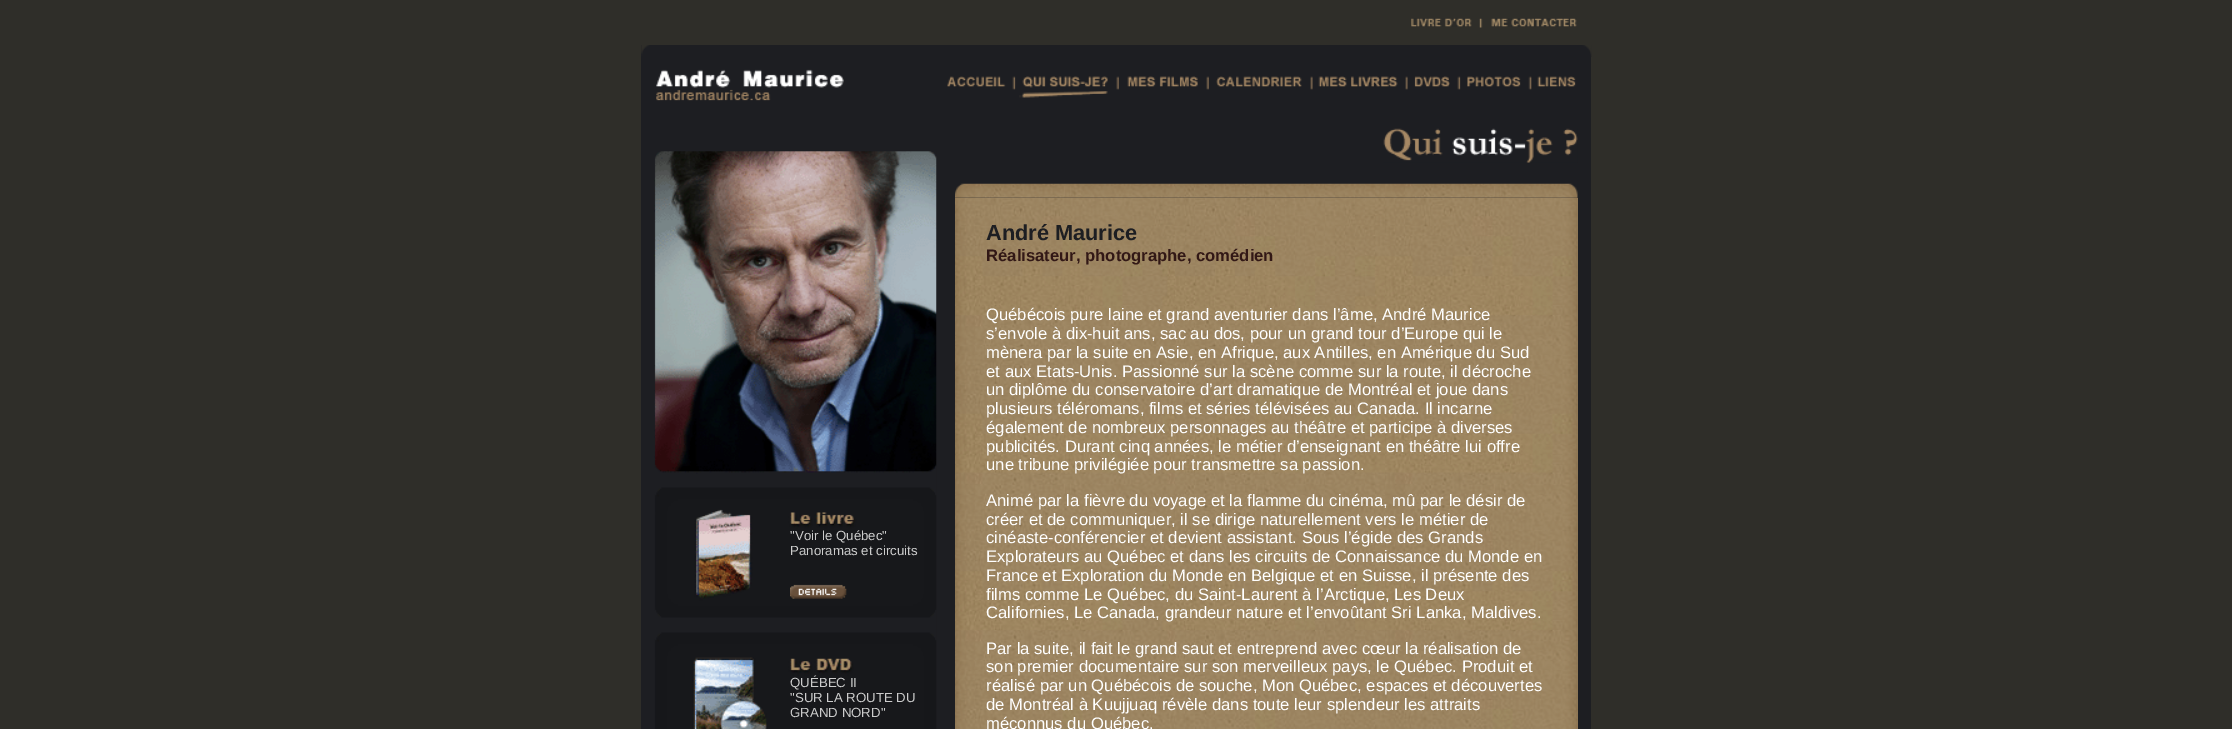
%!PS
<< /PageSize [2232 729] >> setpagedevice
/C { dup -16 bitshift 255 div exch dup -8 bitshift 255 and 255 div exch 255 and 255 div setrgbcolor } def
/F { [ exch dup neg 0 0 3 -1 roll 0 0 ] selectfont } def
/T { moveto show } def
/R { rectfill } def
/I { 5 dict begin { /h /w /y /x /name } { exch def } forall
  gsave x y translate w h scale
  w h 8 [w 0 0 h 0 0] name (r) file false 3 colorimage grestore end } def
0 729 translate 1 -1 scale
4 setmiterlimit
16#2F2E29 C
0 0 2232 729 R
(1.rgb) 1411 18 61 9 I
(2.rgb) 1479 18 4 10 I
(3.rgb) 1491 18 86 9 I
16#1D1E22 C
641 45 950 684 R
(4.rgb) 641 45 951 12 I
(5.rgb) 656 69 188 32 I
(6.rgb) 947 76 59 11 I
(7.rgb) 1012 76 4 14 I
(8.rgb) 1019 76 89 22 I
(9.rgb) 1116 76 3 14 I
(10.rgb) 1127 76 71 11 I
(11.rgb) 1206 76 3 14 I
(12.rgb) 1216 76 86 11 I
(13.rgb) 1310 76 3 14 I
(14.rgb) 1318 76 80 11 I
(13.rgb) 1405 76 3 14 I
(15.rgb) 1414 76 36 11 I
(16.rgb) 1457 76 4 14 I
(17.rgb) 1467 76 54 11 I
(18.rgb) 1528 76 4 14 I
(19.rgb) 1537 76 39 11 I
(20.rgb) 654 151 283 578 I
/LiberationSans-Regular 13.25 F
16#CCCCCC C
("Voir le Québec") 790 540 T
(Panoramas et circuits) 790 555 T
(21.rgb) 790 584 57 15 I
(QUÉBEC II) 790 687 T
("SUR LA ROUTE DU) 790 702 T
(GRAND NORD") 790 717 T
(22.rgb) 1383 128 195 35 I
16#937B58 C
1577 198 1 531 R
(24.rgb) 955 197 623 532 I
(23.rgb) 955 183 623 15 I
/LiberationSans-Bold 21.75 F
16#1D1E22 C
(André Maurice) 986 240 T
/LiberationSans-Bold 16.65 F
16#321816 C
(Réalisateur, photographe, comédien) 986 261 T
/LiberationSans-Regular 16.65 F
16#FFFFFF C
(Québécois pure laine et grand aventurier dans l’âme, André Maurice) 986 320 T
(s’envole à dix-huit ans, sac au dos, pour un grand tour d’Europe qui le) 986 339 T
(mènera par la suite en Asie, en Afrique, aux Antilles, en Amérique du Sud) 986 358 T
(et aux Etats-Unis. Passionné sur la scène comme sur la route, il décroche) 986 377 T
(un diplôme du conservatoire d’art dramatique de Montréal et joue dans) 986 395 T
(plusieurs téléromans, films et séries télévisées au Canada. Il incarne) 986 414 T
(également de nombreux personnages au théâtre et participe à diverses) 986 433 T
(publicités. Durant cinq années, le métier d’enseignant en théâtre lui offre) 986 452 T
(une tribune privilégiée pour transmettre sa passion.) 986 470 T
(Animé par la fièvre du voyage et la flamme du cinéma, mû par le désir de) 986 506 T
(créer et de communiquer, il se dirige naturellement vers le métier de) 986 525 T
(cinéaste-conférencier et devient assistant. Sous l’égide des Grands) 986 543 T
(Explorateurs au Québec et dans les circuits de Connaissance du Monde en) 986 562 T
(France et Exploration du Monde en Belgique et en Suisse, il présente des) 986 581 T
(films comme Le Québec, du Saint-Laurent à l’Arctique, Les Deux) 986 600 T
(Californies, Le Canada, grandeur nature et l’envoûtant Sri Lanka, Maldives.) 986 618 T
(Par la suite, il fait le grand saut et entreprend avec cœur la réalisation de) 986 654 T
(son premier documentaire sur son merveilleux pays, le Québec. Produit et) 986 672 T
(réalisé par un Québécois de souche, Mon Québec, espaces et découvertes) 986 691 T
(de Montréal à Kuujjuaq révèle dans toute leur splendeur les attraits) 986 710 T
(méconnus du Québec.) 986 729 T
showpage
